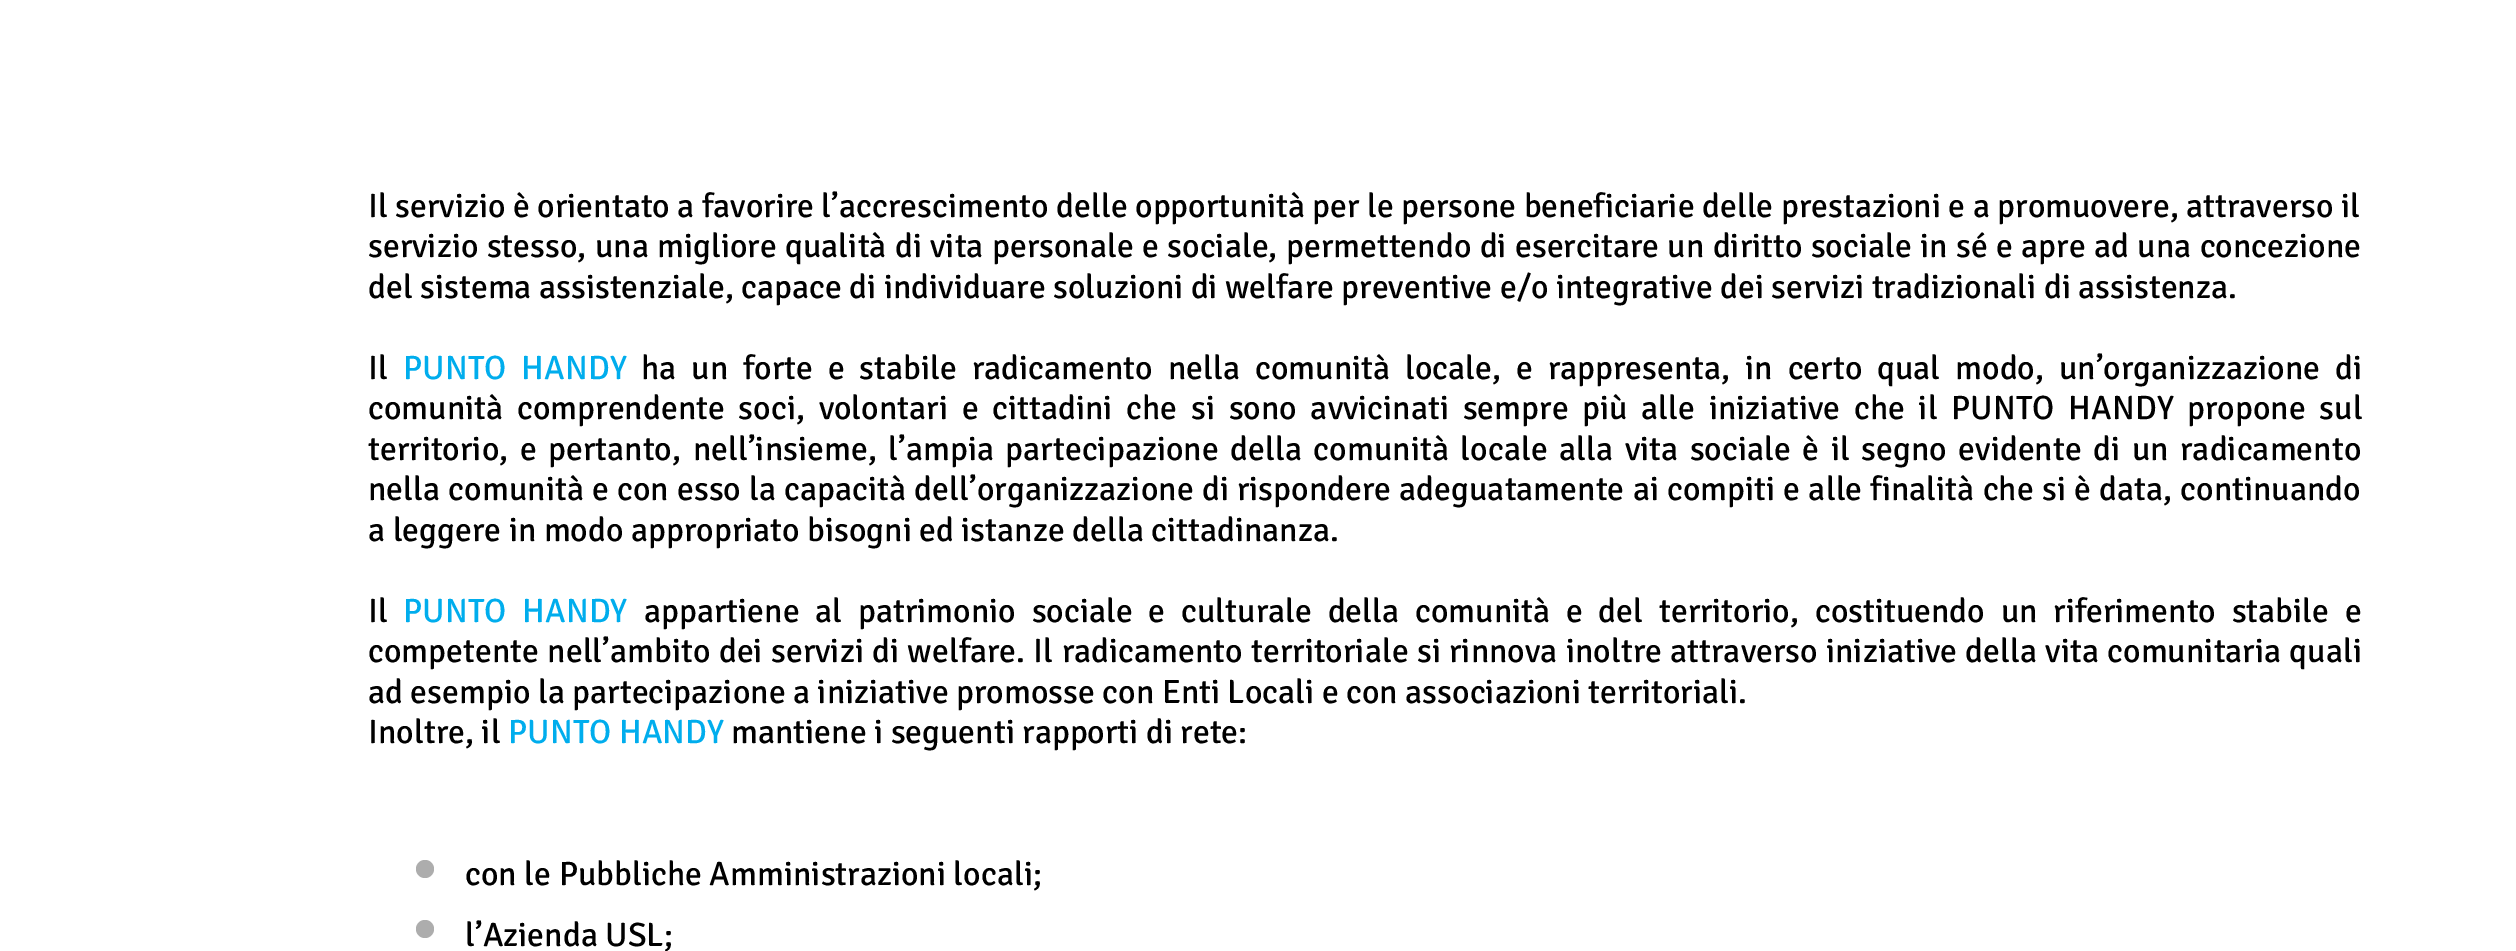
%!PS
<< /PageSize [2516 951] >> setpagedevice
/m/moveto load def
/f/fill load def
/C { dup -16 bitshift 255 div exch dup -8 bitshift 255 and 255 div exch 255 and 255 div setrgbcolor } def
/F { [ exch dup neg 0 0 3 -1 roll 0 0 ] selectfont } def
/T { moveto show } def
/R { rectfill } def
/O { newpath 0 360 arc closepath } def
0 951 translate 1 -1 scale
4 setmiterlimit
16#FFFFFF C
0 0 2516 951 R
/Signika-Regular 33.75 F
16#000000 C
(Il servizio è orientato a favorire l’accrescimento delle opportunità per le persone beneficiarie delle prestazioni e a promuovere, attraverso il) 368 217 T
368 257 m .9 0 32 (servizio stesso, una migliore qualità di vita personale e sociale, permettendo di esercitare un diritto sociale in sé e apre ad una concezione) widthshow
(del sistema assistenziale, capace di individuare soluzioni di welfare preventive e/o integrative dei servizi tradizionali di assistenza.) 368 298 T
(Il) 368 379 T
16#00ADED C
403 379 m 7.4 0 32 (PUNTO HANDY) widthshow
16#000000 C
641 379 m 7.4 0 32 (ha un forte e stabile radicamento nella comunità locale, e rappresenta, in certo qual modo, un’organizzazione di) widthshow
368 419 m 6.25 0 32 (comunità comprendente soci, volontari e cittadini che si sono avvicinati sempre più alle iniziative che il PUNTO HANDY propone sul) widthshow
368 460 m 4.1 0 32 (territorio, e pertanto, nell’insieme, l’ampia partecipazione della comunità locale alla vita sociale è il segno evidente di un radicamento) widthshow
368 500 m .75 0 32 (nella comunità e con esso la capacità dell’organizzazione di rispondere adeguatamente ai compiti e alle finalità che si è data, continuando) widthshow
(a leggere in modo appropriato bisogni ed istanze della cittadinanza.) 368 541 T
(Il) 368 622 T
16#00ADED C
403 622 m 8.25 0 32 (PUNTO HANDY) widthshow
16#000000 C
644 622 m 8.25 0 32 (appartiene al patrimonio sociale e culturale della comunità e del territorio, costituendo un riferimento stabile e) widthshow
368 662 m .9 0 32 (competente nell’ambito dei servizi di welfare. Il radicamento territoriale si rinnova inoltre attraverso iniziative della vita comunitaria quali) widthshow
(ad esempio la partecipazione a iniziative promosse con Enti Locali e con associazioni territoriali.) 368 703 T
(Inoltre, il) 368 743 T
16#00ADED C
(PUNTO HANDY) 508 743 T
16#000000 C
(mantiene i seguenti rapporti di rete:) 731 743 T
16#ADADAD C
425 869 9 O f
16#000000 C
(con le Pubbliche Amministrazioni locali;) 465 885 T
16#ADADAD C
425 929 9 O f
16#000000 C
(l’Azienda USL;) 465 946 T
showpage
